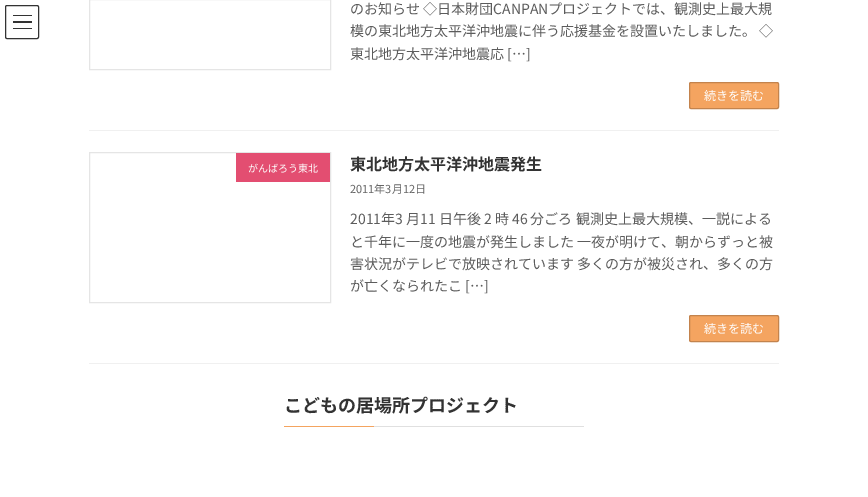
%!PS
<< /PageSize [868 497] >> setpagedevice
/f/fill load def
/s/stroke load def
/q/gsave load def
/Q_/grestore load def
/C { dup -16 bitshift 255 div exch dup -8 bitshift 255 and 255 div exch 255 and 255 div setrgbcolor } def
/F { [ exch dup neg 0 0 3 -1 roll 0 0 ] selectfont } def
/T { moveto show } def
/R { rectfill } def
/Q { 5 dict begin { /r /h /w /y /x } { exch def } forall
  x r add y moveto x w add y 2 copy h add r arct x w add y h add x 1 index r arct
  x y h add x y r arct x y 2 copy exch w add exch r arct closepath end } def
0 497 translate 1 -1 scale
4 setmiterlimit
16#FFFFFF C
0 0 868 497 R
16#333333 C
13 15 19 1 R
13 21 19 2 R
13 28 19 1 R
5.5 5.5 33 33 1.5 Q s
16#F0F0F0 C
89 130 690 1 R
16#E5E5E5 C
89.5 -.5 241 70 rectstroke
/NotoSansJP-Regular 14 F
16#5C5C5C C
(のお知らせ ◇日本財団CANPANプロジェクトでは、観測史上最大規) 350 14 T
(模の東北地方太平洋沖地震に伴う応援基金を設置いたしました。 ◇) 350 36 T
(東北地方太平洋沖地震応 […]) 350 59 T
16#F4A460 C
689.5 82.5 89 26 1.5 Q q f Q_
16#C3834D C
s
/NotoSansJP-Regular 12 F
16#FFFFFF C
(続きを読む) 704 100 T
16#F0F0F0 C
89 363 690 1 R
16#E5E5E5 C
89.5 152.5 241 150 rectstroke
16#E34E71 C
236 153 94 29 R
/NotoSansJP-Regular 10 F
16#FFFFFF C
(がんばろう東北) 248 172 T
/NotoSansJP-Bold 16 F
16#333333 C
(東北地方太平洋沖地震発生) 350 170 T
/NotoSansJP-Regular 11 F
16#666666 C
(2011年3月12日) 350 193 T
/NotoSansJP-Regular 14 F
16#5C5C5C C
(2011年3 月11 日午後 2 時 46 分ごろ 観測史上最大規模、一説による) 350 224 T
(と千年に一度の地震が発生しました 一夜が明けて、朝からずっと被) 350 247 T
(害状況がテレビで放映されています 多くの方が被災され、多くの方) 350 269 T
(が亡くなられたこ […]) 350 291 T
16#F4A460 C
689.5 315.5 89 26 1.5 Q q f Q_
16#C3834D C
s
/NotoSansJP-Regular 12 F
16#FFFFFF C
(続きを読む) 704 333 T
16#E0E0E0 C
374 426 210 1 R
/NotoSansJP-Bold 18 F
16#333333 C
(こどもの居場所プロジェクト) 284 412 T
16#F4A460 C
284 426 90 1 R
showpage
